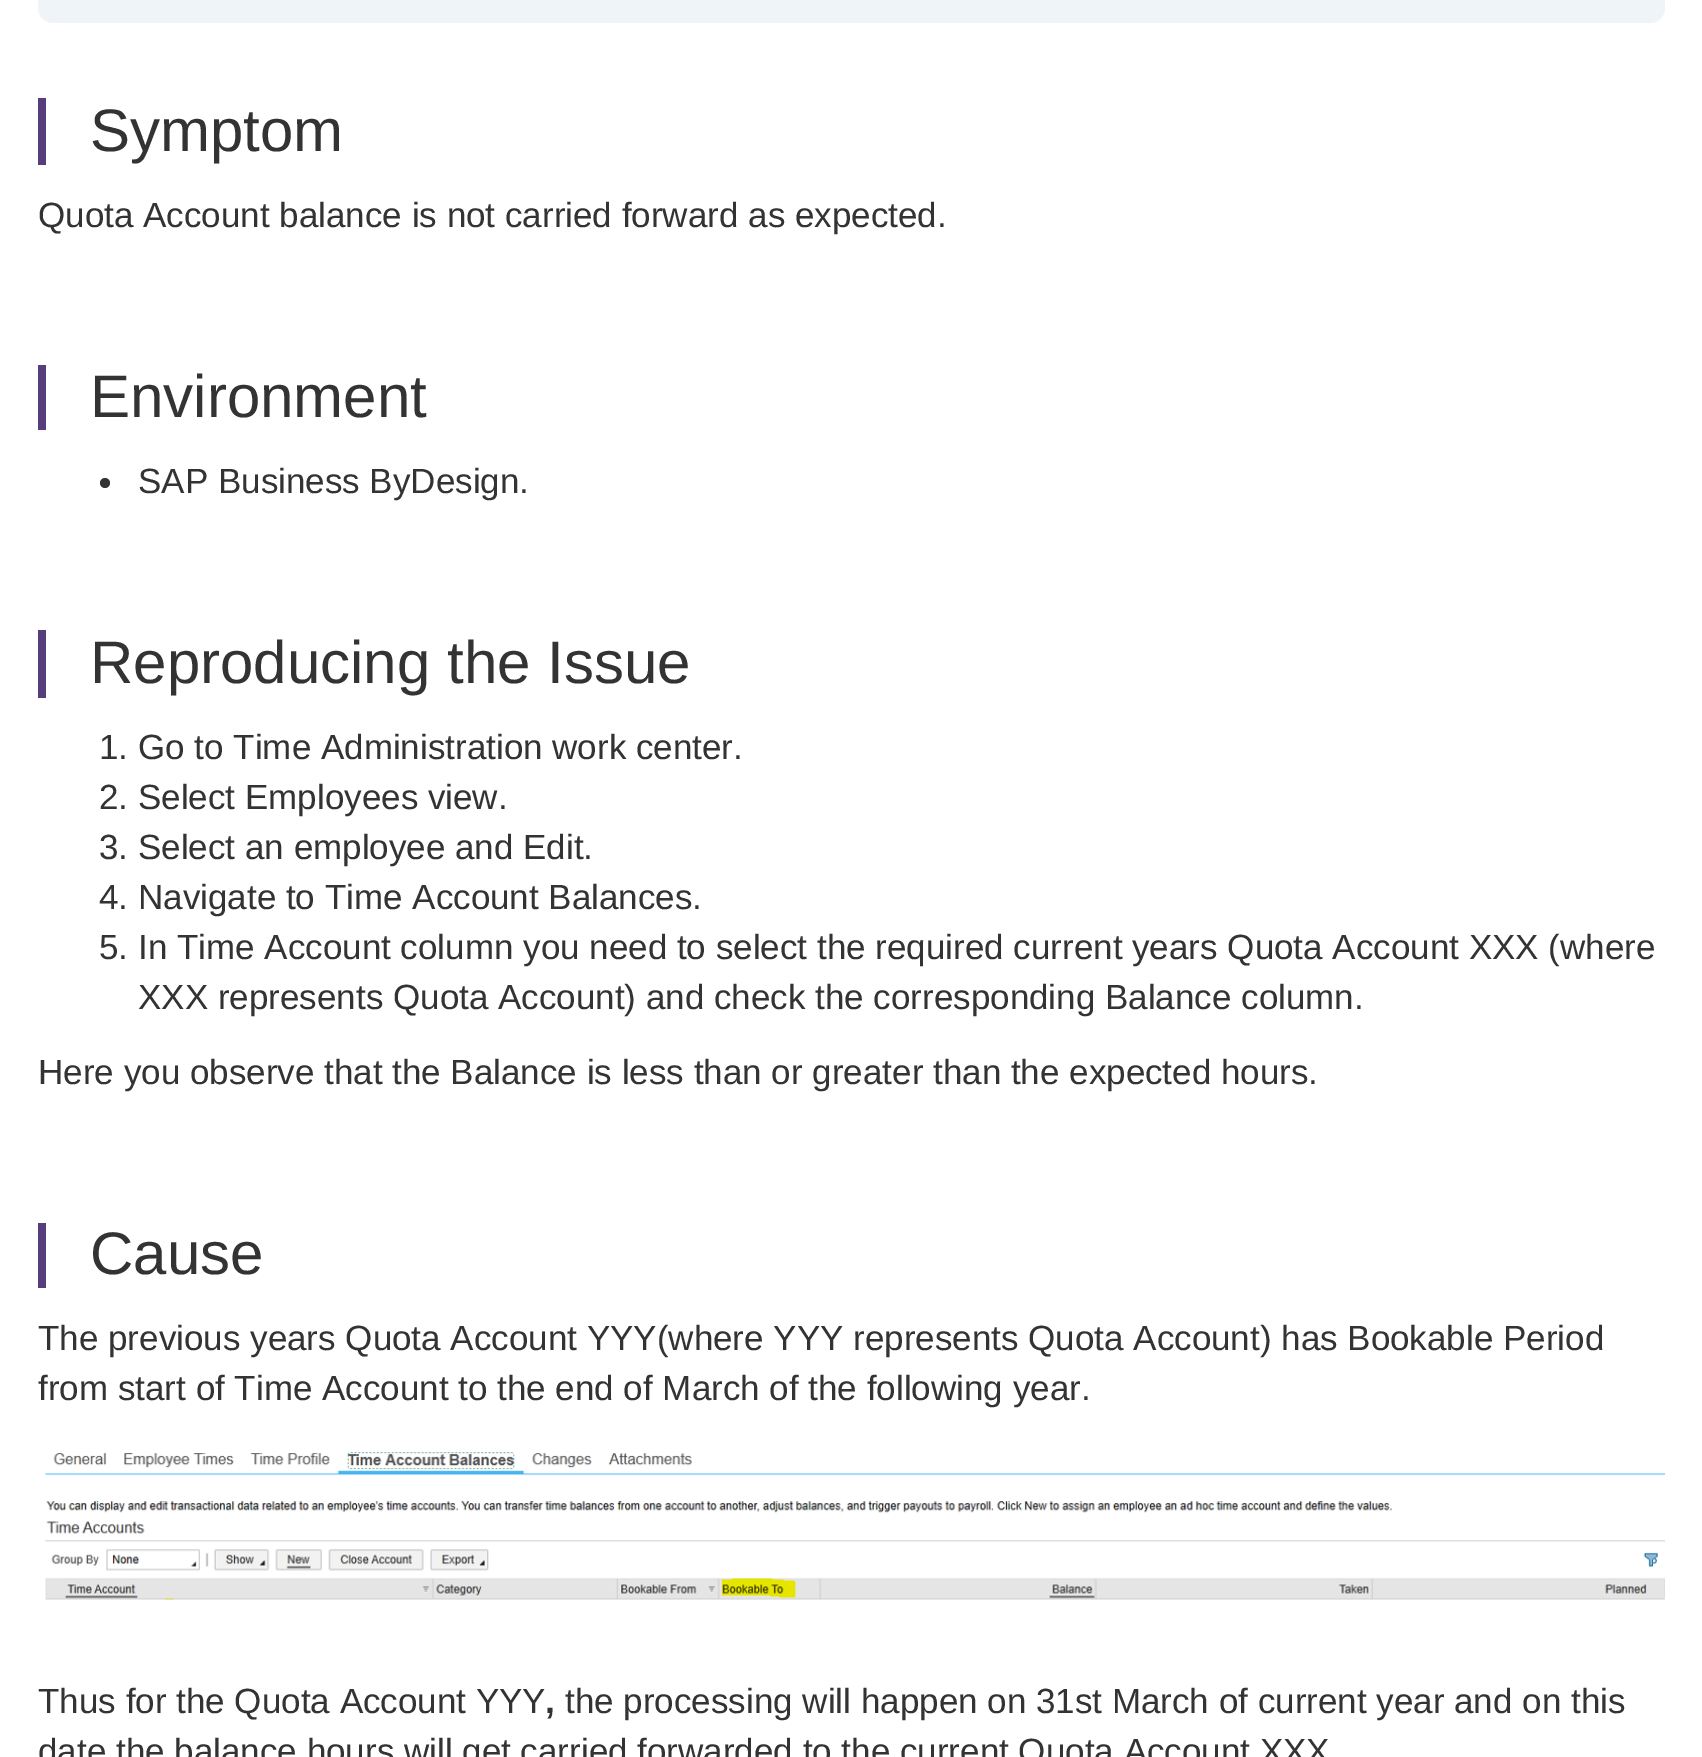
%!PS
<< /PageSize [1702 1757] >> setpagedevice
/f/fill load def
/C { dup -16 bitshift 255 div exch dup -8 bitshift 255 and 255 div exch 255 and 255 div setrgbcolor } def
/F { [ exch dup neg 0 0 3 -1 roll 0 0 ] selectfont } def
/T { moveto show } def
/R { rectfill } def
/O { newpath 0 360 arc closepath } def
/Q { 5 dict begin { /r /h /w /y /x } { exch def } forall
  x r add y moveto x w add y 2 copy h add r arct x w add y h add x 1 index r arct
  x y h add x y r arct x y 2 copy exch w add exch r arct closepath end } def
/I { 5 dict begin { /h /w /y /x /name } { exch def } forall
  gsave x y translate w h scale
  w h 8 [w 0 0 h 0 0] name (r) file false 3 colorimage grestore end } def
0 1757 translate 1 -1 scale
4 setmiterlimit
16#FFFFFF C
0 0 1702 1757 R
16#EFF4F9 C
38 -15 1627 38 15 Q f
16#563D7C C
38 98 8 67 R
/LiberationSans-Regular 60 F
16#333333 C
(Symptom) 90 151 T
/LiberationSans-Regular 35 F
(Quota Account balance is not carried forward as expected.) 38 227 T
16#563D7C C
38 365 8 65 R
/LiberationSans-Regular 60 F
16#333333 C
(Environment) 90 417 T
105 483 5 O f
/LiberationSans-Regular 35 F
(SAP Business ByDesign.) 138 493 T
16#563D7C C
38 630 8 68 R
/LiberationSans-Regular 60 F
16#333333 C
(Reproducing the Issue) 90 683 T
/LiberationSans-Regular 35 F
(1. Go to Time Administration work center.) 99 759 T
(2. Select Employees view.) 99 809 T
(3. Select an employee and Edit.) 99 859 T
(4. Navigate to Time Account Balances.) 99 909 T
(5. In Time Account column you need to select the required current years Quota Account XXX \(where) 99 959 T
(XXX represents Quota Account\) and check the corresponding Balance column.) 138 1009 T
(Here you observe that the Balance is less than or greater than the expected hours.) 38 1084 T
16#563D7C C
38 1223 8 65 R
/LiberationSans-Regular 60 F
16#333333 C
(Cause) 90 1274 T
/LiberationSans-Regular 35 F
(The previous years Quota Account YYY\(where YYY represents Quota Account\) has Bookable Period) 38 1350 T
(from start of Time Account to the end of March of the following year.) 38 1400 T
(1.rgb) 45 1452 1620 148 I
(Thus for the Quota Account YYY) 38 1713 T
/LiberationSans-Bold 35 F
(,) 545 1713 T
/LiberationSans-Regular 35 F
(the processing will happen on 31st March of current year and on this) 565 1713 T
(date the balance hours will get carried forwarded to the current Quota Account XXX) 38 1763 T
showpage
